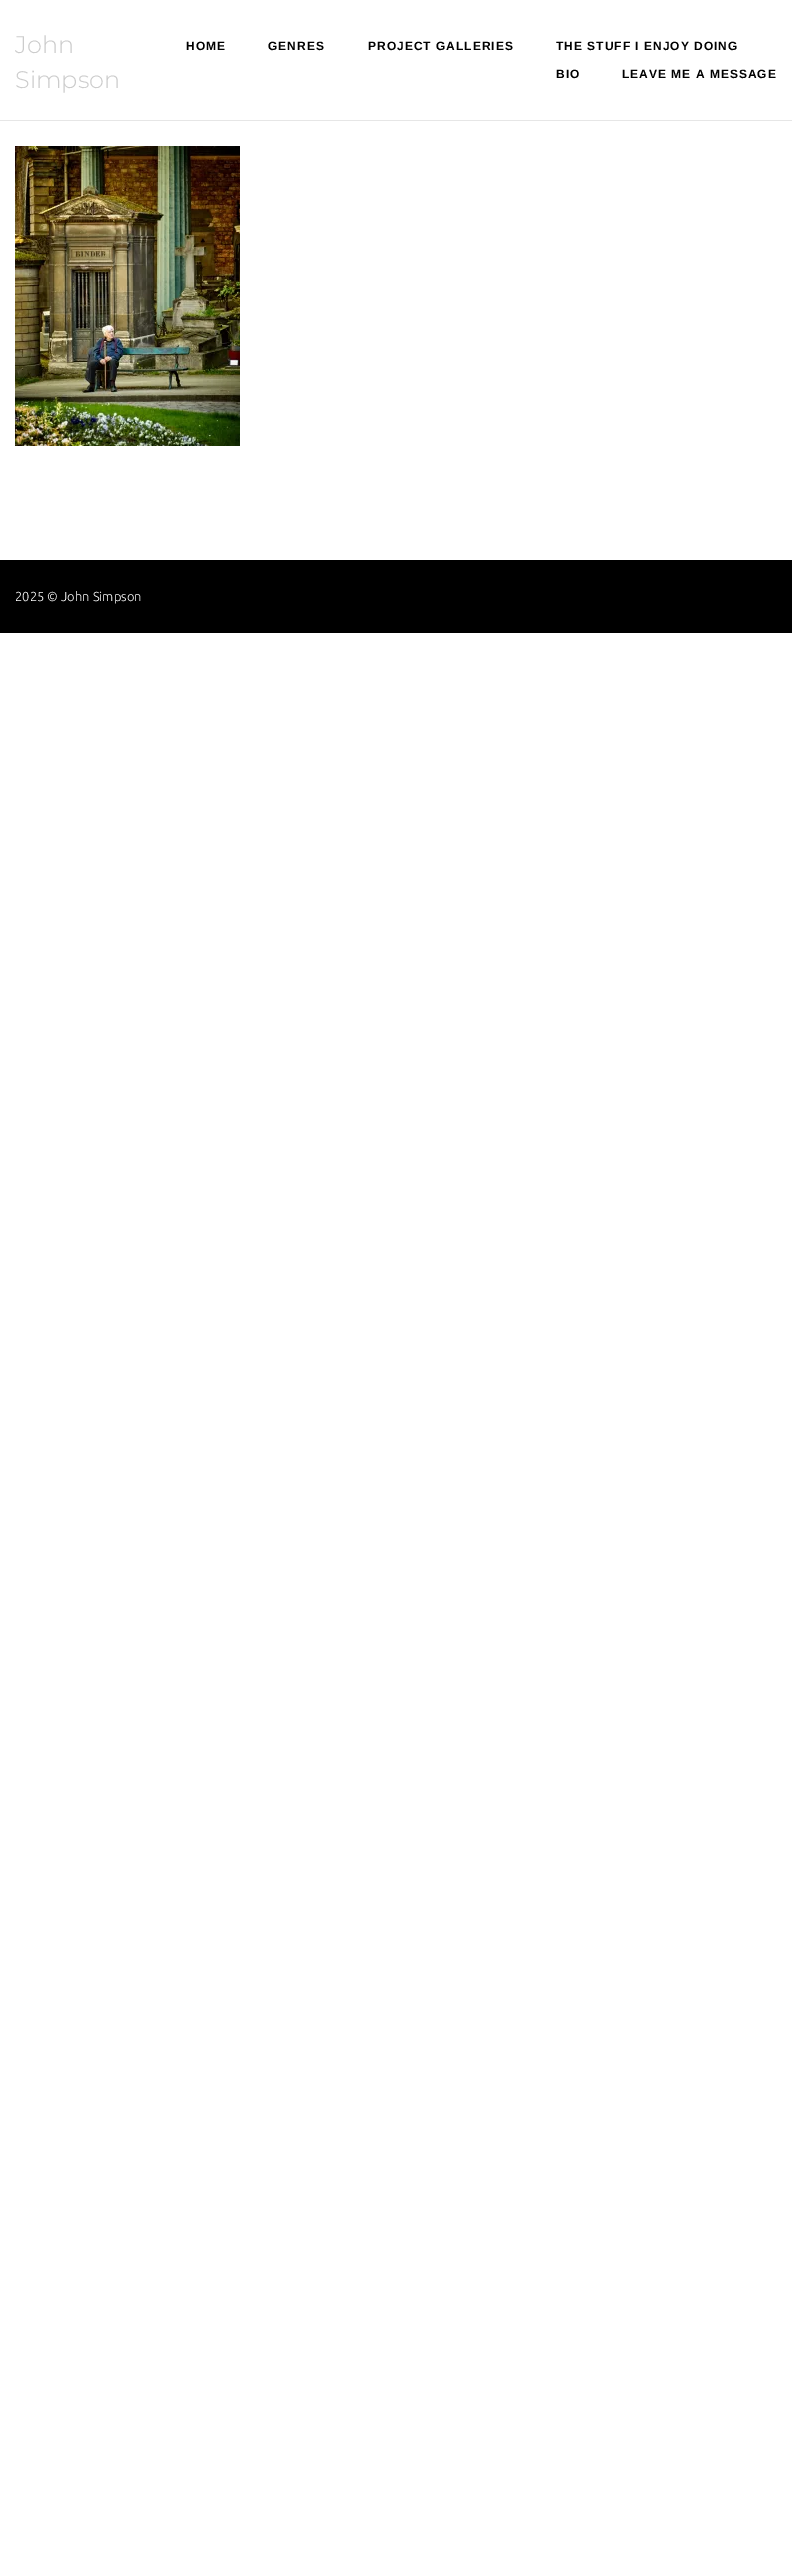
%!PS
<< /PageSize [792 2573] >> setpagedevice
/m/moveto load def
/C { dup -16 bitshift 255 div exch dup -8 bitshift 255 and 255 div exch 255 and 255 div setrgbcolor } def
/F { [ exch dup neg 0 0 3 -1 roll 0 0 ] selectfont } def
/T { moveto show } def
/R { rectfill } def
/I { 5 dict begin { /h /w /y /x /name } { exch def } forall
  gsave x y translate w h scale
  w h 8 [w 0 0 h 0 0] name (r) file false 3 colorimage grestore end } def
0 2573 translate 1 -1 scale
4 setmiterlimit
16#FFFFFF C
0 0 792 2573 R
16#E6E6E6 C
0 120 792 1 R
/Montserrat-Thin 24 F
16#CCCCCC C
(John) 15 53 T
(Simpson) 15 88 T
/LiberationSans-Bold 12 F
16#000000 C
186 50 m 1 0 (HOME) ashow
268 50 m 1 0 (GENRES) ashow
368 50 m 1 0 (PROJECT GALLERIES) ashow
556 50 m 1 0 (THE STUFF I ENJOY DOING) ashow
556 78 m 1 0 (BIO) ashow
622 78 m 1 0 (LEAVE ME A MESSAGE) ashow
(1.rgb) 15 146 225 300 I
0 560 792 73 R
/Ubuntu-Light 13 F
16#FFFFFF C
(2025 © John Simpson) 15 601 T
showpage
